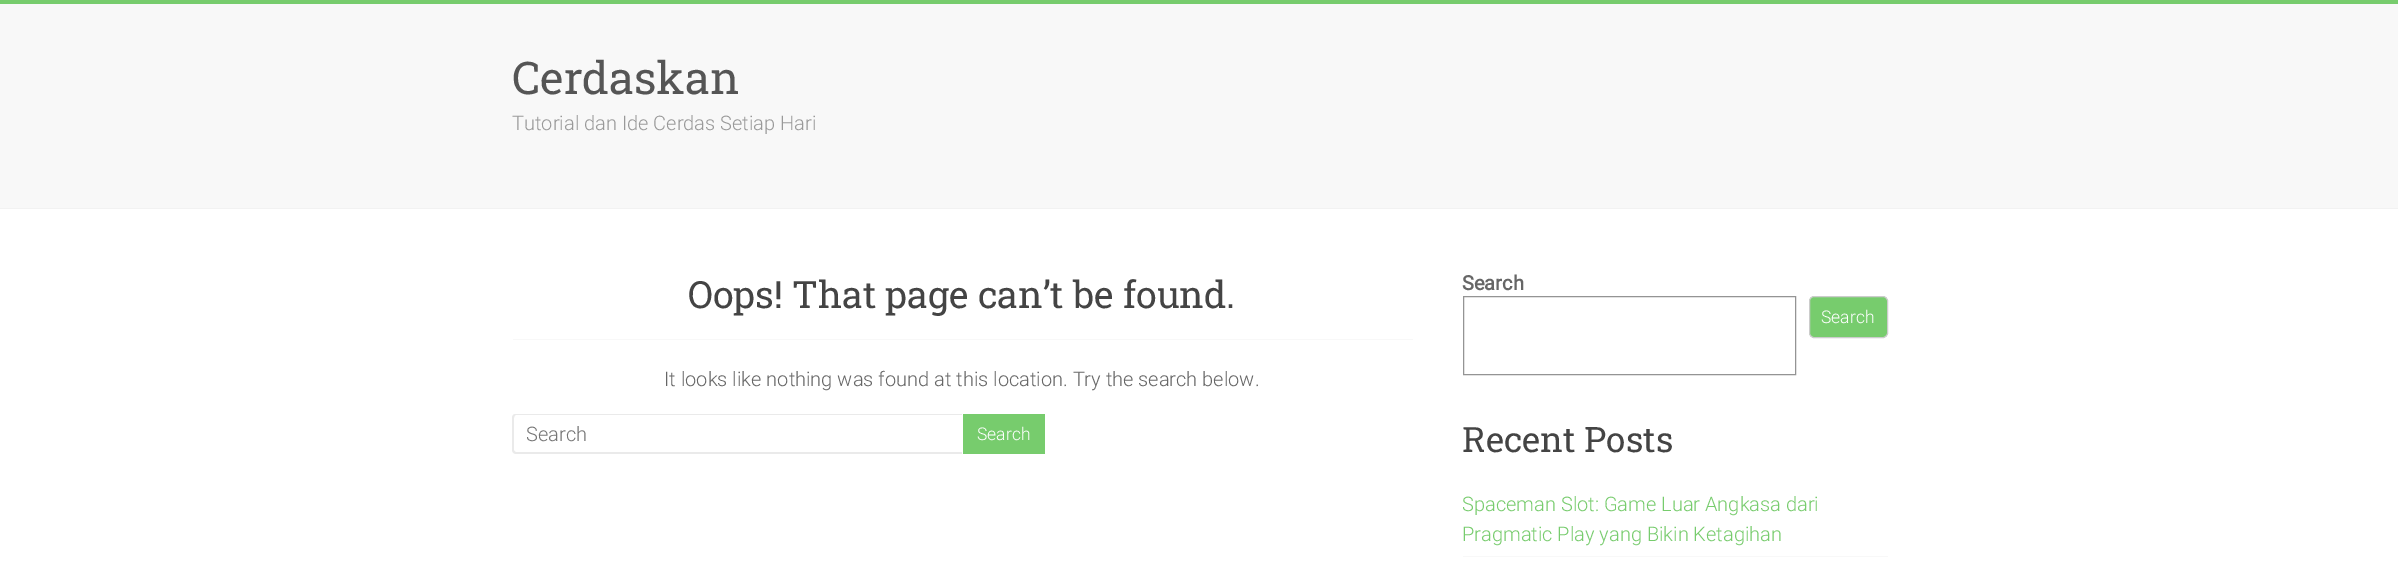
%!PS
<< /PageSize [2398 561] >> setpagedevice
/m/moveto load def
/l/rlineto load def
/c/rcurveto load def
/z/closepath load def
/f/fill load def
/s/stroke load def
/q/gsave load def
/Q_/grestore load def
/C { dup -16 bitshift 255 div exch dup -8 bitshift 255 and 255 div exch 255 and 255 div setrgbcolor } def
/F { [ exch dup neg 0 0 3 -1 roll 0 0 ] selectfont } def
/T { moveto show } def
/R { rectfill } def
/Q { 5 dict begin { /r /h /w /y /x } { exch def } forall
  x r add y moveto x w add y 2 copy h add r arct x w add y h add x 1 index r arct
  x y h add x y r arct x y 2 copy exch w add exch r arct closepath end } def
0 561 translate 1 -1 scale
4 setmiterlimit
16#FFFFFF C
0 0 2398 561 R
16#77CC6D C
0 0 2398 4 R
16#F8F8F8 C
0 4 2398 204 R
16#F2F2F2 C
0 208 2398 1 R
/RobotoSlab-Regular 45 F
16#555555 C
(Cerdaskan) 512 94 T
/Roboto-Light 20 F
16#999999 C
(Tutorial dan Ide Cerdas Setiap Hari) 512 130 T
16#F8F8F8 C
513 339 900 1 R
/RobotoSlab-Regular 37.5 F
16#444444 C
(Oops! That page can’t be found.) 688 308 T
/Roboto-Light 20 F
16#666666 C
(It looks like nothing was found at this location. Try the search below.) 664 386 T
16#EAEAEA C
516 414 m 446 0 l 0 40 l -446 0 l -2 0 -4 -2 -4 -4 c 0 -32 l 0 -3 2 -4 4 -4 c z 516 415 m 446 0 l 0 37 l -446 0 l -1 0 -2 -1 -2 -2 c 0 -32 l 0 -2 1 -3 2 -3 c z eofill
16#757575 C
(Search) 526 441 T
16#77CC6D C
963 414 82 40 R
/Roboto-Light 17.5 F
16#FFFFFF C
(Search) 977 440 T
/Roboto-Bold 20 F
16#666666 C
(Search) 1462 290 T
16#949494 C
1463.5 296.5 332 78 rectstroke
16#77CC6D C
1809.5 296.5 78 41 4.5 Q q f Q_
16#CCCCCC C
s
/Roboto-Light 17.5 F
16#FFFFFF C
(Search) 1821 323 T
/RobotoSlab-Regular 35 F
16#444444 C
(Recent Posts) 1462 452 T
16#F8F8F8 C
1463 556 425 1 R
/Roboto-Light 20 F
16#77CC6D C
(Spaceman Slot: Game Luar Angkasa dari) 1462 511 T
(Pragmatic Play yang Bikin Ketagihan) 1462 541 T
showpage
